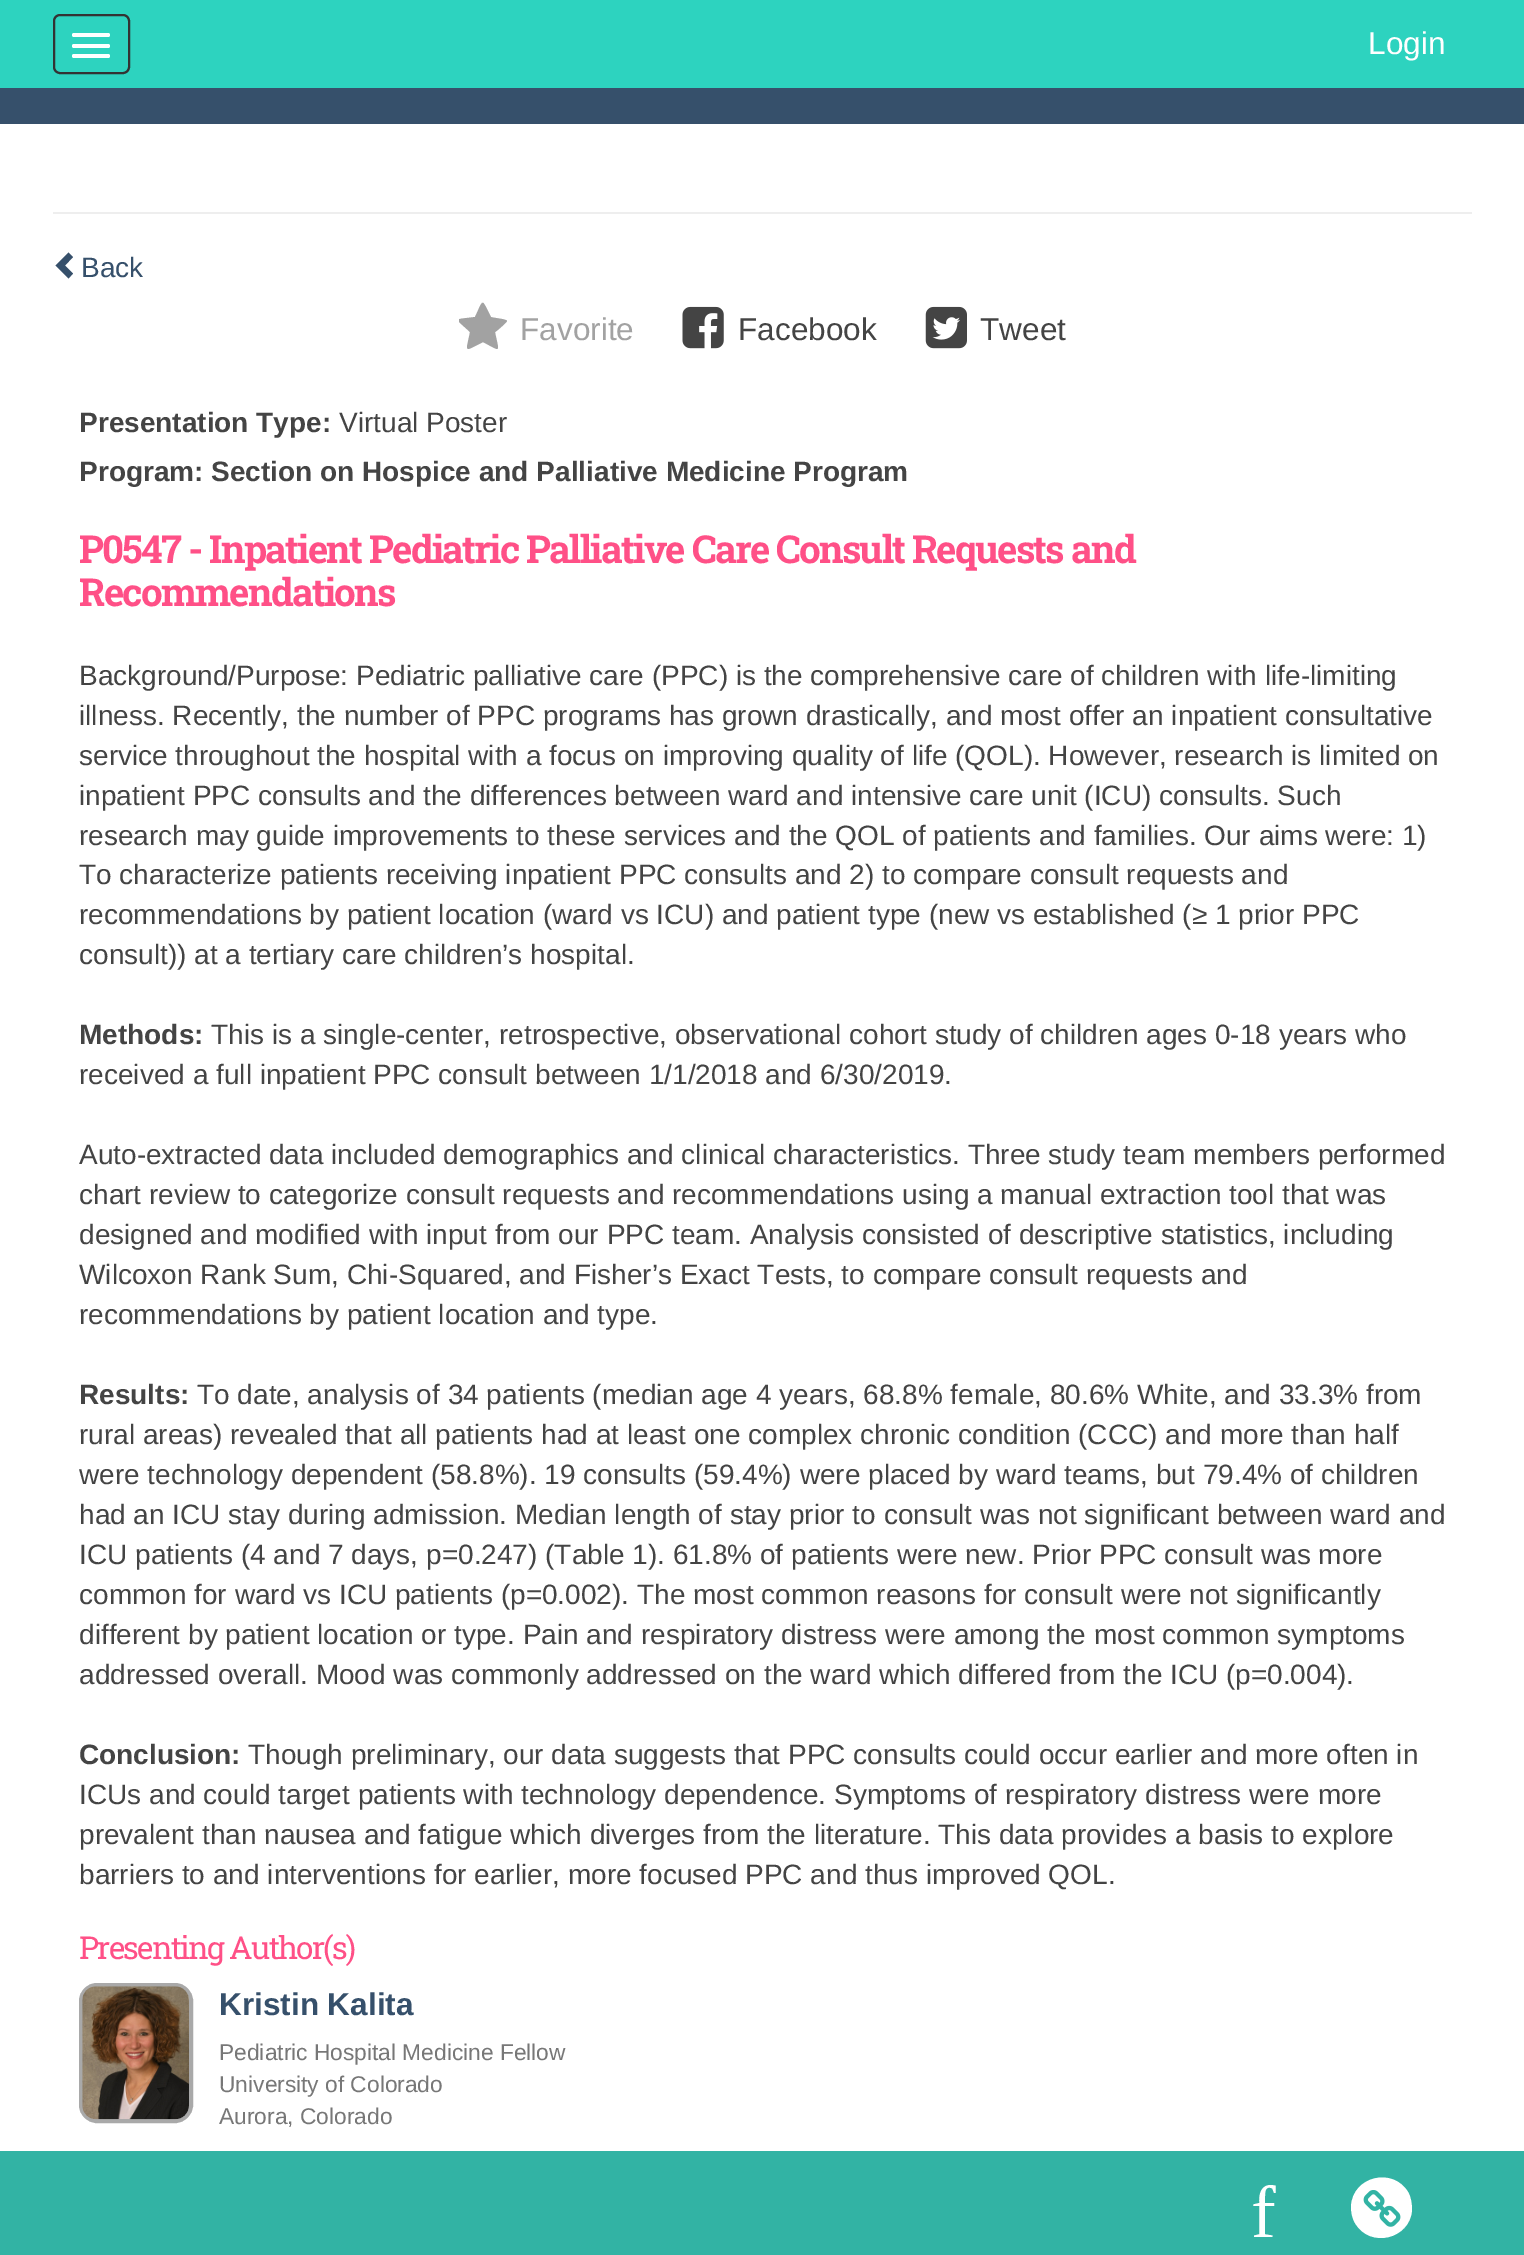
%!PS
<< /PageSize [1524 2255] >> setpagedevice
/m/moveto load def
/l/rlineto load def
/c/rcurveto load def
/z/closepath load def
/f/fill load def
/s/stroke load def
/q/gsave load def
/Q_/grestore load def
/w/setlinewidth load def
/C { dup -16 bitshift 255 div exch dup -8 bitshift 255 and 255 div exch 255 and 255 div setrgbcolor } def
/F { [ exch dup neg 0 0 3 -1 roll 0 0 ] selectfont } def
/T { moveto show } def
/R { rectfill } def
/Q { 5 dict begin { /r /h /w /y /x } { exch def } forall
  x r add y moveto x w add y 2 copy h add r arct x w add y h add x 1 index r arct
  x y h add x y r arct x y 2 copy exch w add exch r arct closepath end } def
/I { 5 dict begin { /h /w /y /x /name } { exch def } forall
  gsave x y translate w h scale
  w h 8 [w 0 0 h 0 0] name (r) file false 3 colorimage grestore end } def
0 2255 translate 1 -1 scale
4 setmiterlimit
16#FFFFFF C
0 0 1524 2255 R
16#2DD3BF C
0 0 1524 88 R
16#333333 C
2 w
54 15 75 58 6 Q s
16#FFFFFF C
72 33 38 4 2 Q f
72 44 38 4 2 Q f
72 54 38 4 2 Q f
/LiberationSans-Regular 31.5 F
(Login) 1368 54 T
16#36506B C
0 88 1524 36 R
16#EEEEEE C
53 212 1419 2 R
16#36506B C
73 257 m -8 8.5 l 8 8 l -4.5 5 l -13 -13 l 13 -13 l z f
/LiberationSans-Regular 28 F
(Back) 81 277 T
q
459 291 607 87 rectclip
16#A2A2A2 C
507 321 m 0 1 -10 10 -12 11 c 4 21 7 20 -12 10 c -20 10 -17 11 -13 -10 c -16 -15 -17 -12 5 -15 c 9 -19 6 -19 16 0 c 2 1 16 2 16 4 c z f
Q_
/LiberationSans-Regular 31.5 F
16#A2A2A2 C
(Favorite) 520 340 T
(1.rgb) 682 306 42 43 I
16#444444 C
(Facebook) 738 340 T
(2.rgb) 925 306 42 43 I
(Tweet) 980 340 T
/LiberationSans-Bold 28 F
(Presentation Type:) 79 432 T
/LiberationSans-Regular 28 F
(Virtual Poster) 339 432 T
/LiberationSans-Bold 28 F
(Program: Section on Hospice and Palliative Medicine Program) 79 481 T
/RobotoSlab-Bold 38.5 F
16#FF5087 C
79 563 m -1.75 0 (P0547 - Inpatient Pediatric Palliative Care Consult Requests and) ashow
79 606 m -1.75 0 (Recommendations) ashow
/LiberationSans-Regular 28 F
16#444444 C
(Background/Purpose: Pediatric palliative care \(PPC\) is the comprehensive care of children with life-limiting) 79 685 T
(illness. Recently, the number of PPC programs has grown drastically, and most offer an inpatient consultative) 79 725 T
(service throughout the hospital with a focus on improving quality of life \(QOL\). However, research is limited on) 79 765 T
(inpatient PPC consults and the differences between ward and intensive care unit \(ICU\) consults. Such) 79 805 T
(research may guide improvements to these services and the QOL of patients and families. Our aims were: 1\)) 79 845 T
(To characterize patients receiving inpatient PPC consults and 2\) to compare consult requests and) 79 884 T
(recommendations by patient location \(ward vs ICU\) and patient type \(new vs established \(≥ 1 prior PPC) 79 924 T
(consult\)\) at a tertiary care children’s hospital.) 79 964 T
/LiberationSans-Bold 28 F
(Methods:) 79 1044 T
/LiberationSans-Regular 28 F
(This is a single-center, retrospective, observational cohort study of children ages 0-18 years who) 211 1044 T
(received a full inpatient PPC consult between 1/1/2018 and 6/30/2019.) 79 1084 T
(Auto-extracted data included demographics and clinical characteristics. Three study team members performed) 79 1164 T
(chart review to categorize consult requests and recommendations using a manual extraction tool that was) 79 1204 T
(designed and modified with input from our PPC team. Analysis consisted of descriptive statistics, including) 79 1244 T
(Wilcoxon Rank Sum, Chi-Squared, and Fisher’s Exact Tests, to compare consult requests and) 79 1284 T
(recommendations by patient location and type.) 79 1324 T
/LiberationSans-Bold 28 F
(Results:) 79 1404 T
/LiberationSans-Regular 28 F
(To date, analysis of 34 patients \(median age 4 years, 68.8% female, 80.6% White, and 33.3% from) 197 1404 T
(rural areas\) revealed that all patients had at least one complex chronic condition \(CCC\) and more than half) 79 1444 T
(were technology dependent \(58.8%\). 19 consults \(59.4%\) were placed by ward teams, but 79.4% of children) 79 1484 T
(had an ICU stay during admission. Median length of stay prior to consult was not significant between ward and) 79 1524 T
(ICU patients \(4 and 7 days, p=0.247\) \(Table 1\). 61.8% of patients were new. Prior PPC consult was more) 79 1564 T
(common for ward vs ICU patients \(p=0.002\). The most common reasons for consult were not significantly) 79 1604 T
(different by patient location or type. Pain and respiratory distress were among the most common symptoms) 79 1644 T
(addressed overall. Mood was commonly addressed on the ward which differed from the ICU \(p=0.004\).) 79 1684 T
/LiberationSans-Bold 28 F
(Conclusion:) 79 1764 T
/LiberationSans-Regular 28 F
(Though preliminary, our data suggests that PPC consults could occur earlier and more often in) 248 1764 T
(ICUs and could target patients with technology dependence. Symptoms of respiratory distress were more) 79 1804 T
(prevalent than nausea and fatigue which diverges from the literature. This data provides a basis to explore) 79 1844 T
(barriers to and interventions for earlier, more focused PPC and thus improved QOL.) 79 1884 T
/RobotoSlab-Regular 31.5 F
16#FF5087 C
79 1959 m -1.75 0 (Presenting Author\(s\)) ashow
16#A9A9A9 C
4 w
81 1985 110 136 16 Q s
(3.rgb) 82 1986 107 134 I
/LiberationSans-Bold 31.5 F
16#36506B C
(Kristin Kalita) 219 2015 T
/LiberationSans-Regular 22.75 F
16#777777 C
(Pediatric Hospital Medicine Fellow) 219 2060 T
(University of Colorado) 219 2092 T
(Aurora, Colorado) 219 2124 T
16#32B3A4 C
0 2151 1524 104 R
/LiberationSerif-Regular 74 F
16#FFFFFF C
(f) 1251 2237 T
1408 2192 m 3 5 4 12 4 18 c -2 29 -42 39 -57 13 c -3 -5 -4 -11 -4 -17 c 2 -30 42 -39 57 -14 c z f
(4.rgb) 1363 2190 38 37 I
showpage
